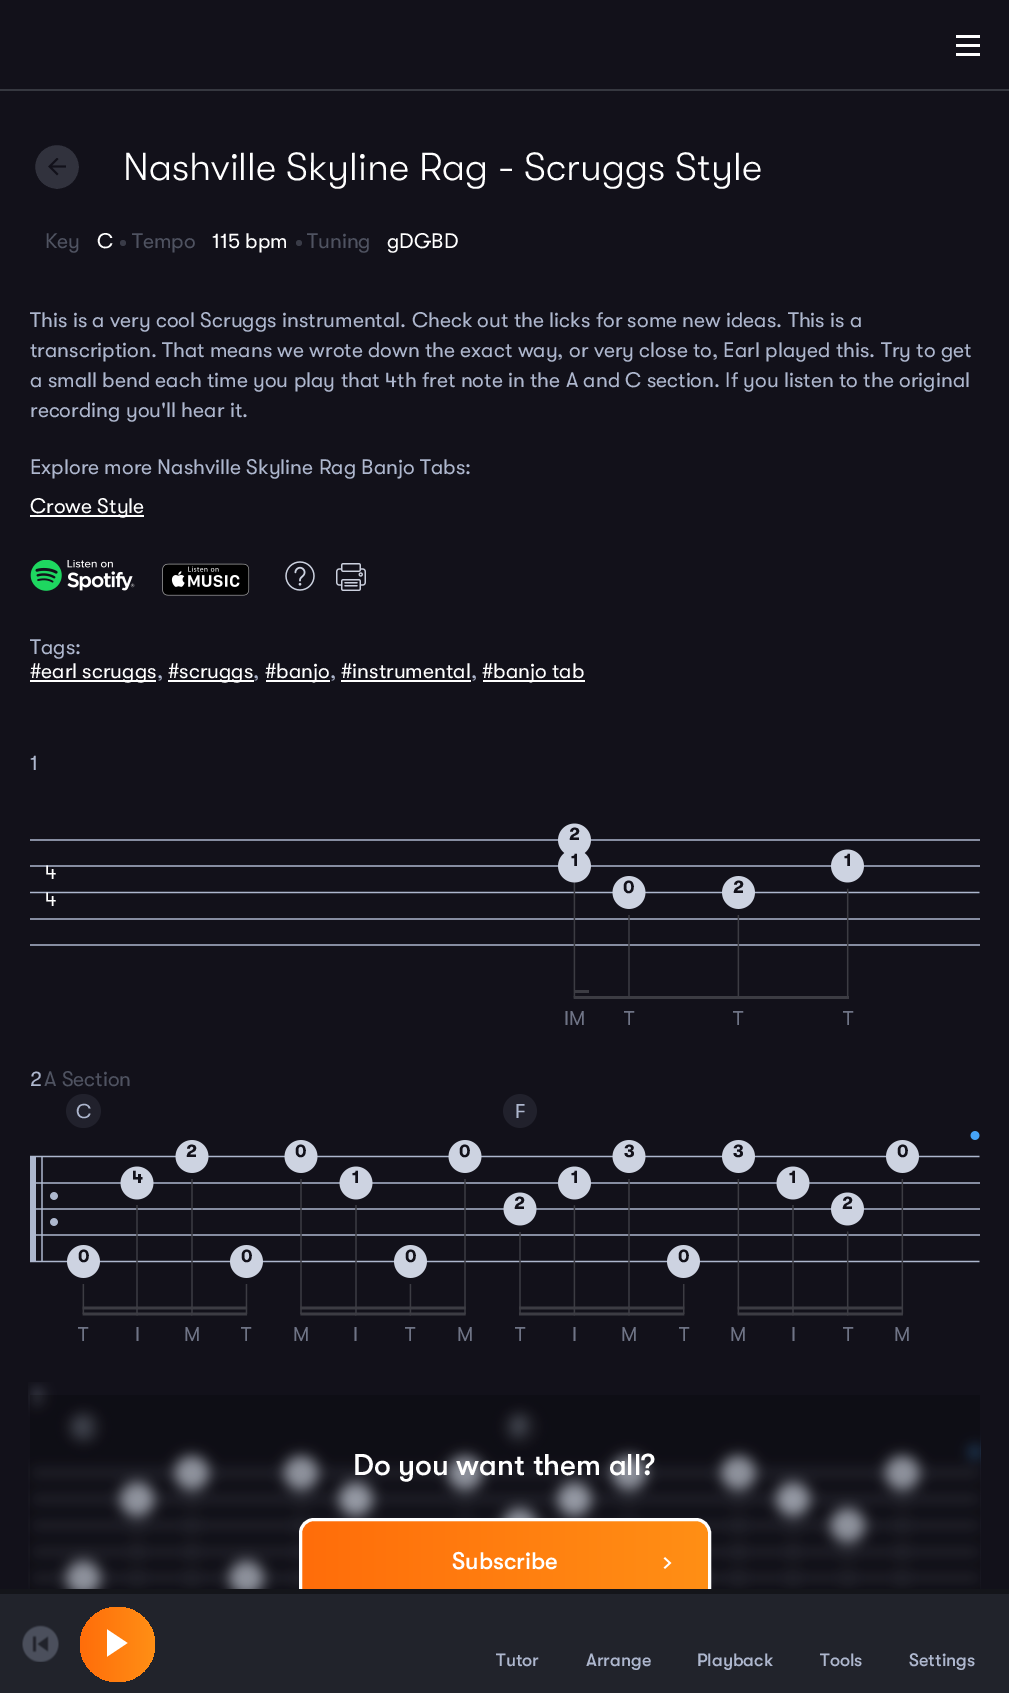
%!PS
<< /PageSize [1009 1693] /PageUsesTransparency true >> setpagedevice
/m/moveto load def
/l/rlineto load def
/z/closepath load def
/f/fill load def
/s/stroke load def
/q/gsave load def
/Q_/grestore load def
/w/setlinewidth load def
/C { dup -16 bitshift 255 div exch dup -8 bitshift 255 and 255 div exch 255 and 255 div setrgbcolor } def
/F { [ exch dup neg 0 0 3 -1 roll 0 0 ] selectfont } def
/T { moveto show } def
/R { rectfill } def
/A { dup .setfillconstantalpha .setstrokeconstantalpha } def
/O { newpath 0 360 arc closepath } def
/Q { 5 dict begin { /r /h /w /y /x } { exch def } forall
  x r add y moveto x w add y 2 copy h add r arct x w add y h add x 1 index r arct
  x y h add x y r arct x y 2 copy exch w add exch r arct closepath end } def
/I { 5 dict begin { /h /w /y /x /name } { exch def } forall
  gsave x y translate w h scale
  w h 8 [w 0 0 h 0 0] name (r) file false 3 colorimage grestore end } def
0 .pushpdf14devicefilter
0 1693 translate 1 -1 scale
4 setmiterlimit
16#12111A C
0 0 1009 1693 R
16#363840 C
0 89 1009 2 R
16#FFFFFF C
956 35 24 3 R
956 44 24 3 R
956 53 24 3 R
16#31323D C
57.5 166.5 22.5 O f
(1.rgb) 48 158 18 18 I
16#12111A C
5 w
57 167 24.5 O s
/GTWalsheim-Light 39 F
16#FFFFFF C
(Nashville Skyline Rag - Scruggs Style) 123 180 T
/GTWalsheim-Regular 21 F
16#4F5361 C
(Key) 45 248 T
16#FFFFFF C
(C) 97 248 T
16#393B47 C
123 243 3 O f
16#4F5361 C
(Tempo) 132 248 T
16#FFFFFF C
(115 bpm) 212 248 T
16#393B47 C
299 243 3 O f
16#4F5361 C
(Tuning) 307 248 T
16#FFFFFF C
(gDGBD) 387 248 T
16#AEB7CE C
(This is a very cool Scruggs instrumental. Check out the licks for some new ideas. This is a) 30 327 T
(transcription. That means we wrote down the exact way, or very close to, Earl played this. Try to get) 30 357 T
(a small bend each time you play that 4th fret note in the A and C section. If you listen to the original) 30 387 T
(recording you'll hear it.) 30 417 T
(Explore more Nashville Skyline Rag Banjo Tabs:) 30 474 T
16#FFFFFF C
30 515 114 2 R
(Crowe Style) 30 513 T
(2.rgb) 30 560 105 31 I
(3.rgb) 162 563 88 33 I
(4.rgb) 285 561 30 30 I
(5.rgb) 336 563 30 28 I
16#AEB7CE C
(Tags:) 30 654 T
16#FFFFFF C
30 680 126 2 R
(#earl scruggs) 30 678 T
16#AEB7CE C
(,) 157 678 T
16#FFFFFF C
168 680 86 2 R
(#scruggs) 168 678 T
16#AEB7CE C
(,) 253 678 T
16#FFFFFF C
266 680 64 2 R
(#banjo) 265 678 T
16#AEB7CE C
(,) 330 678 T
16#FFFFFF C
(#instrumental) 341 678 T
341 680 130 2 R
16#AEB7CE C
(,) 471 678 T
16#FFFFFF C
483 680 102 2 R
(#banjo tab) 482 678 T
16#AEB7CE C
(1) 30 770 T
(6.rgb) 30 823 950 176 I
/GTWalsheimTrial-Bold 18 F
16#12111A C
(2) 569 840 T
(1) 571 866 T
(1) 844 866 T
/GTWalsheim-Regular 20 F
16#FFFFFF C
(4) 45 879 T
/GTWalsheimTrial-Bold 18 F
16#12111A C
(0) 623 893 T
(2) 733 893 T
/GTWalsheim-Regular 20 F
16#FFFFFF C
(4) 45 906 T
16#6F7486 C
(IM) 564 1025 T
(T) 624 1025 T
(T) 733 1025 T
(T) 843 1025 T
/GTWalsheim-Regular 21 F
16#AEB7CE C
(2) 30 1086 T
16#4F5361 C
(A Section) 44 1086 T
(7.rgb) 30 1094 950 222 I
/GTWalsheim-Regular 20 F
16#AEB7CE C
(C) 76 1118 T
(F) 515 1118 T
/GTWalsheimTrial-Bold 18 F
16#12111A C
(2) 186 1157 T
(0) 295 1157 T
(0) 459 1157 T
(3) 624 1157 T
(3) 733 1157 T
(0) 897 1157 T
(4) 132 1183 T
(1) 352 1183 T
(1) 571 1183 T
(1) 789 1183 T
(2) 514 1209 T
(2) 842 1209 T
(0) 78 1262 T
(0) 241 1262 T
(0) 405 1262 T
(0) 678 1262 T
/GTWalsheim-Regular 20 F
16#6F7486 C
(T) 78 1341 T
(I) 135 1341 T
(M) 184 1341 T
(T) 241 1341 T
(M) 293 1341 T
(I) 353 1341 T
(T) 405 1341 T
(M) 457 1341 T
(T) 515 1341 T
(I) 572 1341 T
(M) 621 1341 T
(T) 679 1341 T
(M) 730 1341 T
(I) 791 1341 T
(T) 843 1341 T
(M) 894 1341 T
(8.rgb) 28 1382 953 207 I
0.2 A
16#000000 C
30 1395 950 194 R
/GTWalsheim-Medium 30 F
1 A
16#FFFFFF C
(Do you want them all?) 353 1475 T
q 302 1521 406 83 12 Q clip newpath
<< /ShadingType 2 /ColorSpace /DeviceRGB /Coords [302 1562 708 1562] /Extend [true true] /Function << /FunctionType 2 /Domain [0 1] /C0 [1 .427 .039] /C1 [1 .561 .082] /N 1 >> >> shfill Q_
(9.rgb) 663 1557 9 12 I
3 w
300.5 1519.5 409 86 13.5 Q s
/GTWalsheim-Medium 24 F
(Subscribe) 452 1569 T
16#21232B C
0 1594 1009 99 R
16#14151A C
0 1589 1009 5 R
(10.rgb) 22 1625 37 37 I
q 117.5 1644.5 37.5 O clip newpath
<< /ShadingType 2 /ColorSpace /DeviceRGB /Coords [80 1644 155 1644] /Extend [true true] /Function << /FunctionType 2 /Domain [0 1] /C0 [1 .427 .039] /C1 [1 .561 .082] /N 1 >> >> shfill Q_
q
107 1629 21 29 rectclip
16#FFFFFF C
106.5 1629 m 21 14 l -21 14 l z eofill
Q_
/GTWalsheim-Medium 18 F
16#AEB7CE C
(Tutor) 496 1666 T
(Arrange) 586 1666 T
(Playback) 697 1666 T
(Tools) 820 1666 T
(Settings) 909 1666 T
.poppdf14devicefilter showpage
